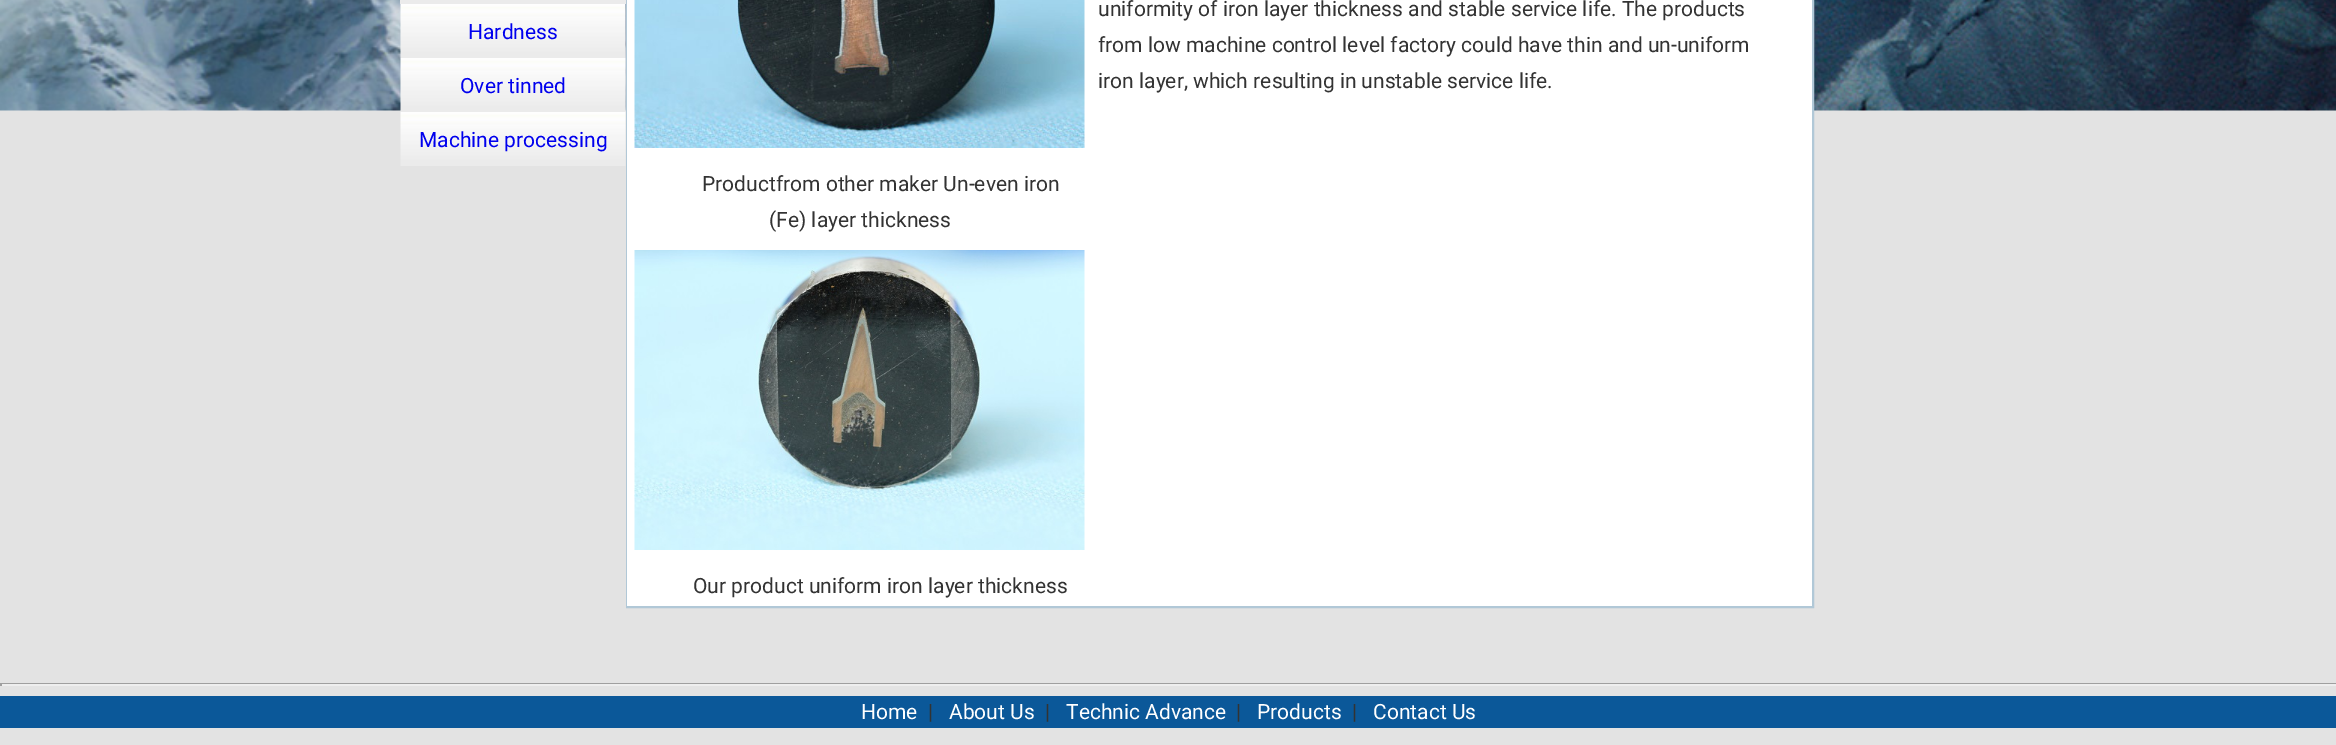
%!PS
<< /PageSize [2336 745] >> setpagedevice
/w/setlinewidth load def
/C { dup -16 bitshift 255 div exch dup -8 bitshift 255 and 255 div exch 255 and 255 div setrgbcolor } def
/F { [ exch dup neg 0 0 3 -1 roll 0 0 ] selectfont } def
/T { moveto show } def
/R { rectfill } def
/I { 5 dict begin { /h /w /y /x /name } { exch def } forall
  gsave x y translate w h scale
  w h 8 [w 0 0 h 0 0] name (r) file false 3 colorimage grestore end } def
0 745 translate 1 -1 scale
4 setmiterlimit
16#E3E3E3 C
0 0 2336 745 R
(1.rgb) 0 0 2336 111 I
16#EBEBEB C
400 0 226 4 R
(2.rgb) 400 4 226 54 I
/Roboto-Regular 21 F
16#0000EE C
(Hardness) 468 39 T
(3.rgb) 400 58 226 54 I
(Over tinned) 460 93 T
(4.rgb) 400 112 226 54 I
(Machine processing) 419 147 T
16#B1C8D7 C
2 w
627 -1 1186 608 rectstroke
16#FFFFFF C
627 0 1185 606 R
16#333333 C
(uniformity of iron layer thickness and stable service life. The products) 1098 16 T
(from low machine control level factory could have thin and un-uniform) 1098 52 T
(iron layer, which resulting in unstable service life.) 1098 88 T
(5.rgb) 634 0 451 148 I
(Productfrom other maker Un-even iron) 702 191 T
(\(Fe\) layer thickness) 769 227 T
(6.rgb) 634 250 451 300 I
(Our product uniform iron layer thickness) 693 593 T
16#9F9F9F C
0 683 2336 1 R
16#EEEEEE C
0 684 2336 2 R
16#9F9F9F C
0 683 2 3 R
16#0B5899 C
0 696 2336 32 R
16#FFFFFF C
(Home) 861 719 T
16#333333 C
(|) 928 719 T
16#FFFFFF C
(About Us) 949 719 T
16#333333 C
(|) 1045 719 T
16#FFFFFF C
(Technic Advance) 1066 719 T
16#333333 C
(|) 1236 719 T
16#FFFFFF C
(Products) 1257 719 T
16#333333 C
(|) 1352 719 T
16#FFFFFF C
(Contact Us) 1373 719 T
showpage
